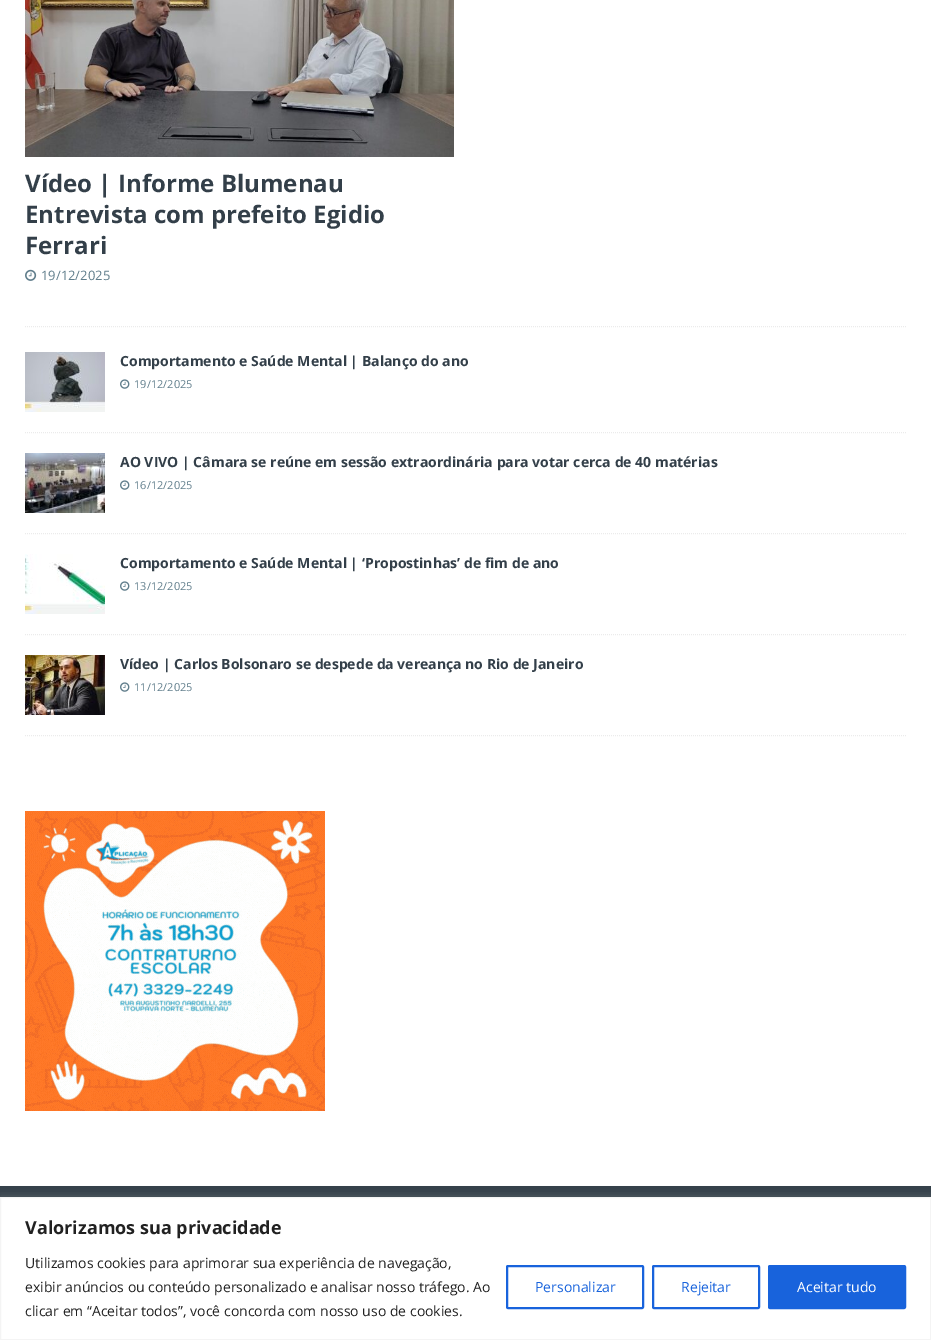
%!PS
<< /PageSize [931 1340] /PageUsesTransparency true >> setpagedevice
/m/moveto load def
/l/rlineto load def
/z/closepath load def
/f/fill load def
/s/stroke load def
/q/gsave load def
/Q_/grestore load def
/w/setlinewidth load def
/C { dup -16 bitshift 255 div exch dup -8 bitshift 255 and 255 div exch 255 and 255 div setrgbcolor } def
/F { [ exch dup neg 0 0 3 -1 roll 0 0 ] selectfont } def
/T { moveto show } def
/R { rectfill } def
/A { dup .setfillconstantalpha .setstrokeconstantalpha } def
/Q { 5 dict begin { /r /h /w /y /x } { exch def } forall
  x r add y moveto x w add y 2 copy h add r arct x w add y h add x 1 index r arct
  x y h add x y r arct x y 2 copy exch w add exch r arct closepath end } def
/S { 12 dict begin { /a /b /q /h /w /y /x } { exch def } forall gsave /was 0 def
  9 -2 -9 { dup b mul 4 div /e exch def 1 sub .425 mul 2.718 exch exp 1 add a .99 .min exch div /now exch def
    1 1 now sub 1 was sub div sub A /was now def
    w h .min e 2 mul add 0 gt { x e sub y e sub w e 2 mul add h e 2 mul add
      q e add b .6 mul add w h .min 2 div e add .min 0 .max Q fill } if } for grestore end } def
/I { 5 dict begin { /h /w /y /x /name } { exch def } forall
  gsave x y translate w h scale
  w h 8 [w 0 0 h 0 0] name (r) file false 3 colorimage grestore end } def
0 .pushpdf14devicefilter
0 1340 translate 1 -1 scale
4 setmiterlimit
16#FFFFFF C
0 0 931 1340 R
16#EBEBEB C
[1 1] 0 setdash
25 326.5 m 881 0 l s
(1.rgb) 25 0 429 157 I
/OpenSans-Bold 24 F
16#333F49 C
(Vídeo | Informe Blumenau) 25 192 T
(Entrevista com prefeito Egidio) 25 223 T
(Ferrari) 25 254 T
(2.rgb) 25 269 12 12 I
/OpenSans-Regular 13 F
16#607D8B C
(19/12/2025) 41 280 T
16#EBEBEB C
25 432.5 m 881 0 l s
(3.rgb) 25 352 80 60 I
/OpenSans-Bold 14 F
16#333F49 C
(Comportamento e Saúde Mental | Balanço do ano) 120 366 T
(4.rgb) 120 379 10 10 I
/OpenSans-Regular 11 F
16#607D8B C
(19/12/2025) 134 388 T
16#EBEBEB C
25 533.5 m 881 0 l s
(5.rgb) 25 453 80 60 I
/OpenSans-Bold 14 F
16#333F49 C
(AO VIVO | Câmara se reúne em sessão extraordinária para votar cerca de 40 matérias) 120 467 T
(4.rgb) 120 480 10 10 I
/OpenSans-Regular 11 F
16#607D8B C
(16/12/2025) 134 489 T
16#EBEBEB C
25 634.5 m 881 0 l s
(6.rgb) 25 554 80 60 I
/OpenSans-Bold 14 F
16#333F49 C
(Comportamento e Saúde Mental | ‘Propostinhas’ de fim de ano) 120 568 T
(4.rgb) 120 581 10 10 I
/OpenSans-Regular 11 F
16#607D8B C
(13/12/2025) 134 590 T
16#EBEBEB C
25 735.5 m 881 0 l s
(7.rgb) 25 655 80 60 I
/OpenSans-Bold 14 F
16#333F49 C
(Vídeo | Carlos Bolsonaro se despede da vereança no Rio de Janeiro) 120 669 T
(4.rgb) 120 682 10 10 I
/OpenSans-Regular 11 F
16#607D8B C
(11/12/2025) 134 691 T
(8.rgb) 25 811 300 300 I
16#333F49 C
0 1186 931 11 R
16#ACABAB C
0 1196 931 143 0 5 .3 S
16#FFFFFF C
.5 1197.5 m 930 0 l 0 142 l -930 0 l z q f Q_
16#F4F4F4 C
[] 0 setdash
s
/OpenSans-Bold 18 F
16#212121 C
(Valorizamos sua privacidade) 25 1234 T
/OpenSans-Regular 14 F
(Utilizamos cookies para aprimorar sua experiência de navegação,) 25 1268 T
(exibir anúncios ou conteúdo personalizado e analisar nosso tráfego. Ao) 25 1292 T
(clicar em “Aceitar todos”, você concorda com nosso uso de cookies.) 25 1316 T
16#1863DC C
2 w
507 1266 136 42 1 Q s
(Personalizar) 535 1292 T
653 1266 106 42 1 Q s
(Rejeitar) 681 1292 T
769 1266 136 42 1 Q q f Q_
s
16#FFFFFF C
(Aceitar tudo) 797 1292 T
.poppdf14devicefilter showpage
